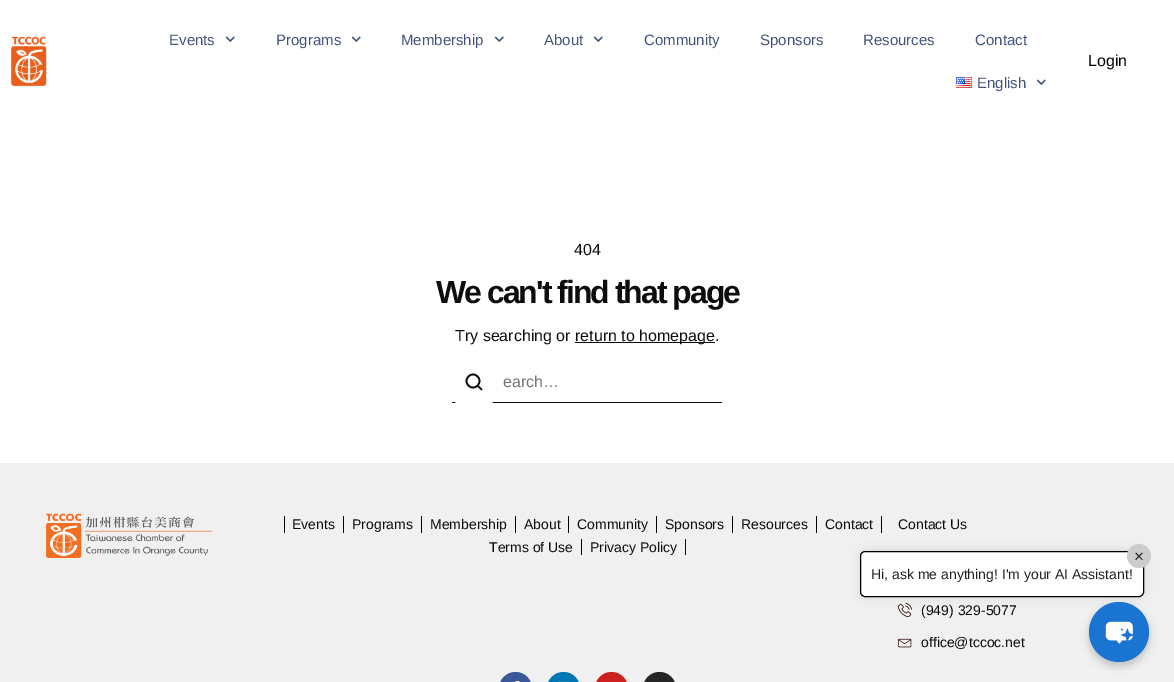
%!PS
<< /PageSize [1174 682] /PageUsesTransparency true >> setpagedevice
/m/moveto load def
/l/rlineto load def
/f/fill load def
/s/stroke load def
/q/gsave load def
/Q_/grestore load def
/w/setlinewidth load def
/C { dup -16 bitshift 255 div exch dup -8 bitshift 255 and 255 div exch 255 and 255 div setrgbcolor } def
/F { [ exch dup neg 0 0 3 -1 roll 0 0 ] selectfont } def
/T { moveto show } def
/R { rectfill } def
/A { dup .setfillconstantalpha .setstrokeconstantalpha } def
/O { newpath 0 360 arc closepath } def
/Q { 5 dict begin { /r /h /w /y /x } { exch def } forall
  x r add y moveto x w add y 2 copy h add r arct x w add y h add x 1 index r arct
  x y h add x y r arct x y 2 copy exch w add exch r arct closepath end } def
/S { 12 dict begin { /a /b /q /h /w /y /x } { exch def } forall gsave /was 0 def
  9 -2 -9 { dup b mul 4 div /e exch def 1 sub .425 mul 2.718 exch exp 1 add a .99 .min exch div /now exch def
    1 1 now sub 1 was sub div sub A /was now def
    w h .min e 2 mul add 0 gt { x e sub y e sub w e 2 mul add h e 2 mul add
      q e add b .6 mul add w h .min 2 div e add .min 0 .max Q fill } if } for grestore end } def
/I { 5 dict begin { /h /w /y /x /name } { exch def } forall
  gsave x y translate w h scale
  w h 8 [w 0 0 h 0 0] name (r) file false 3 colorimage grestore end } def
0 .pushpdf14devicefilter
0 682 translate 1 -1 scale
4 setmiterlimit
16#FFFFFF C
0 0 1174 682 R
(1.rgb) 10 36 37 51 I
/LiberationSans-Regular 15 F
16#42537D C
(Events) 169 45 T
(2.rgb) 225 36 10 6 I
(Programs) 276 45 T
(2.rgb) 351 36 10 6 I
(Membership) 401 45 T
(2.rgb) 494 36 10 6 I
(About) 544 45 T
(2.rgb) 593 36 10 6 I
(Community) 644 45 T
(Sponsors) 760 45 T
(Resources) 863 45 T
(Contact) 975 45 T
(3.rgb) 956 77 16 11 I
(English) 977 88 T
(2.rgb) 1036 79 10 6 I
/LiberationSans-Regular 16 F
16#000000 C
(Login) 1088 66 T
16#0E0D0D C
(404) 574 255 T
/LiberationSans-Bold 32 F
436 303 m -2 0 (We can't find that page) ashow
/LiberationSans-Regular 16 F
(Try searching or) 455 341 T
575 342 140 1 R
(return to homepage.) 575 341 T
452 402 270 1 R
16#FFFFFF C
448 364 52 43 20 Q f
16#0E0D0D C
1.7 w
473 381 6.5 O s
1 setlinecap
1 setlinejoin
481.5 389.5 m -3.5 -3.5 l s
16#757575 C
(earch…) 503 387 T
16#F0F0F0 C
0 463 1174 219 R
16#F3F3F3 C
36 671 1102 1 R
(4.rgb) 46 513 167 45 I
16#000000 C
284 516 1 17 R
/LiberationSans-Regular 14 F
16#0E0D0D C
(Events) 292 529 T
16#000000 C
343 516 1 17 R
16#0E0D0D C
(Programs) 352 529 T
16#000000 C
421 516 1 17 R
16#0E0D0D C
(Membership) 430 529 T
16#000000 C
515 516 1 17 R
16#0E0D0D C
(About) 524 529 T
16#000000 C
568 516 1 17 R
16#0E0D0D C
(Community) 577 529 T
16#000000 C
656 516 1 17 R
16#0E0D0D C
(Sponsors) 665 529 T
16#000000 C
732 516 1 17 R
16#0E0D0D C
(Resources) 741 529 T
16#000000 C
816 516 1 17 R
16#0E0D0D C
(Contact) 825 529 T
16#000000 C
881 516 1 17 R
16#0E0D0D C
(Terms of Use) 489 552 T
16#000000 C
581 539 1 16 R
16#0E0D0D C
(Privacy Policy) 590 552 T
685 539 1 16 R
(Contact Us) 898 529 T
(5.rgb) 898 603 14 14 I
(\(949\) 329-5077) 921 615 T
(6.rgb) 898 638 14 10 I
(office@tccoc.net) 921 647 T
16#3B5998 C
499 672 33 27 16.5 Q f
(7.rgb) 515 681 5 1 I
16#0077B5 C
547 672 33 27 16.5 Q f
16#1281BA C
558 681 11 1 R
16#CD201F C
595 672 33 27 16.5 Q f
16#262626 C
643 672 33 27 16.5 Q f
16#969696 C
860 551 284 46 5 5 .3 S
16#FFFFFF C
860.5 551.5 283 45 4.5 Q q f Q_
16#000000 C
1 w
0 setlinecap
0 setlinejoin
s
16#CCCCCC C
1139 556 12 O f
/LiberationSans-Regular 17 F
16#212121 C
(×) 1134 562 T
/LiberationSans-Regular 14 F
(Hi, ask me anything! I'm your AI Assistant!) 871 579 T
16#000000 C
1089 606 60 60 30 4 .2 S
16#1974D2 C
1119 632 30 O f
(8.rgb) 1105 621 28 23 I
.poppdf14devicefilter showpage
